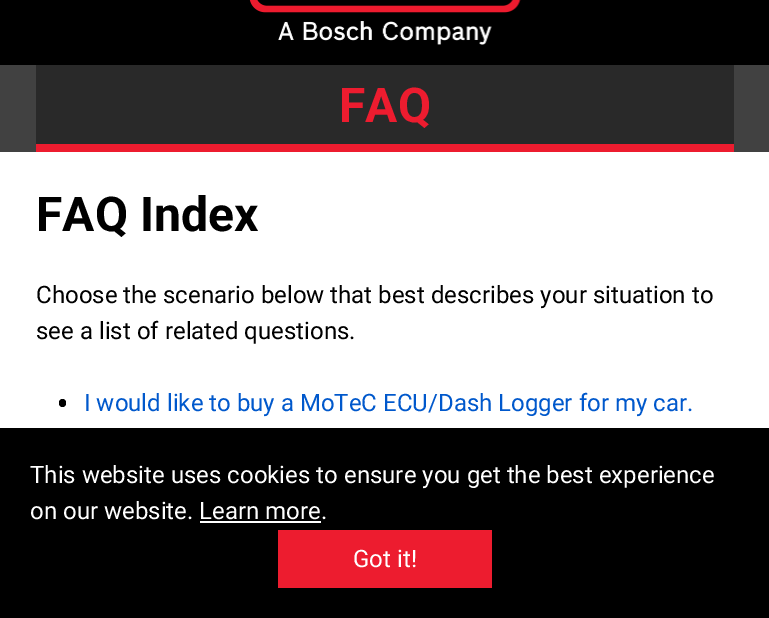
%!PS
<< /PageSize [769 618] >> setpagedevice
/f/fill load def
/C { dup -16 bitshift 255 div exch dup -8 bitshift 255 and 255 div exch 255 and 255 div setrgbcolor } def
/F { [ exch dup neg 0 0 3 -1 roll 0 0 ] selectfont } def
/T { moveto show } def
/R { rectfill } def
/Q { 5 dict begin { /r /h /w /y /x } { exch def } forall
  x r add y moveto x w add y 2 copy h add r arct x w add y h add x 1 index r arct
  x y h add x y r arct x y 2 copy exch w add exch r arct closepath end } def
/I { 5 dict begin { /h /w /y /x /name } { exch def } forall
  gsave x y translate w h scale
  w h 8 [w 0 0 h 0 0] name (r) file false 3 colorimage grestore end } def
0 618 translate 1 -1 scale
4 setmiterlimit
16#000000 C
0 0 769 618 R
(1.rgb) 249 0 272 45 I
16#414141 C
0 65 769 87 R
16#292929 C
36 65 698 79 R
16#ED1C2F C
36 144 698 8 R
/Roboto-Bold 48 F
(FAQ) 339 122 T
16#FFFFFF C
0 152 769 276 R
16#000000 C
(FAQ Index) 36 231 T
/Roboto-Regular 24 F
(Choose the scenario below that best describes your situation to) 36 303 T
(see a list of related questions.) 36 339 T
59 399 7 8 3.5 Q f
16#0058CC C
(I would like to buy a MoTeC ECU/Dash Logger for my car.) 84 411 T
16#FFFFFF C
(This website uses cookies to ensure you get the best experience) 30 483 T
(on our website. Learn more.) 30 519 T
200 521 121 2 R
16#ED1C2F C
278 530 214 58 R
16#FFFFFF C
(Got it!) 353 567 T
showpage
